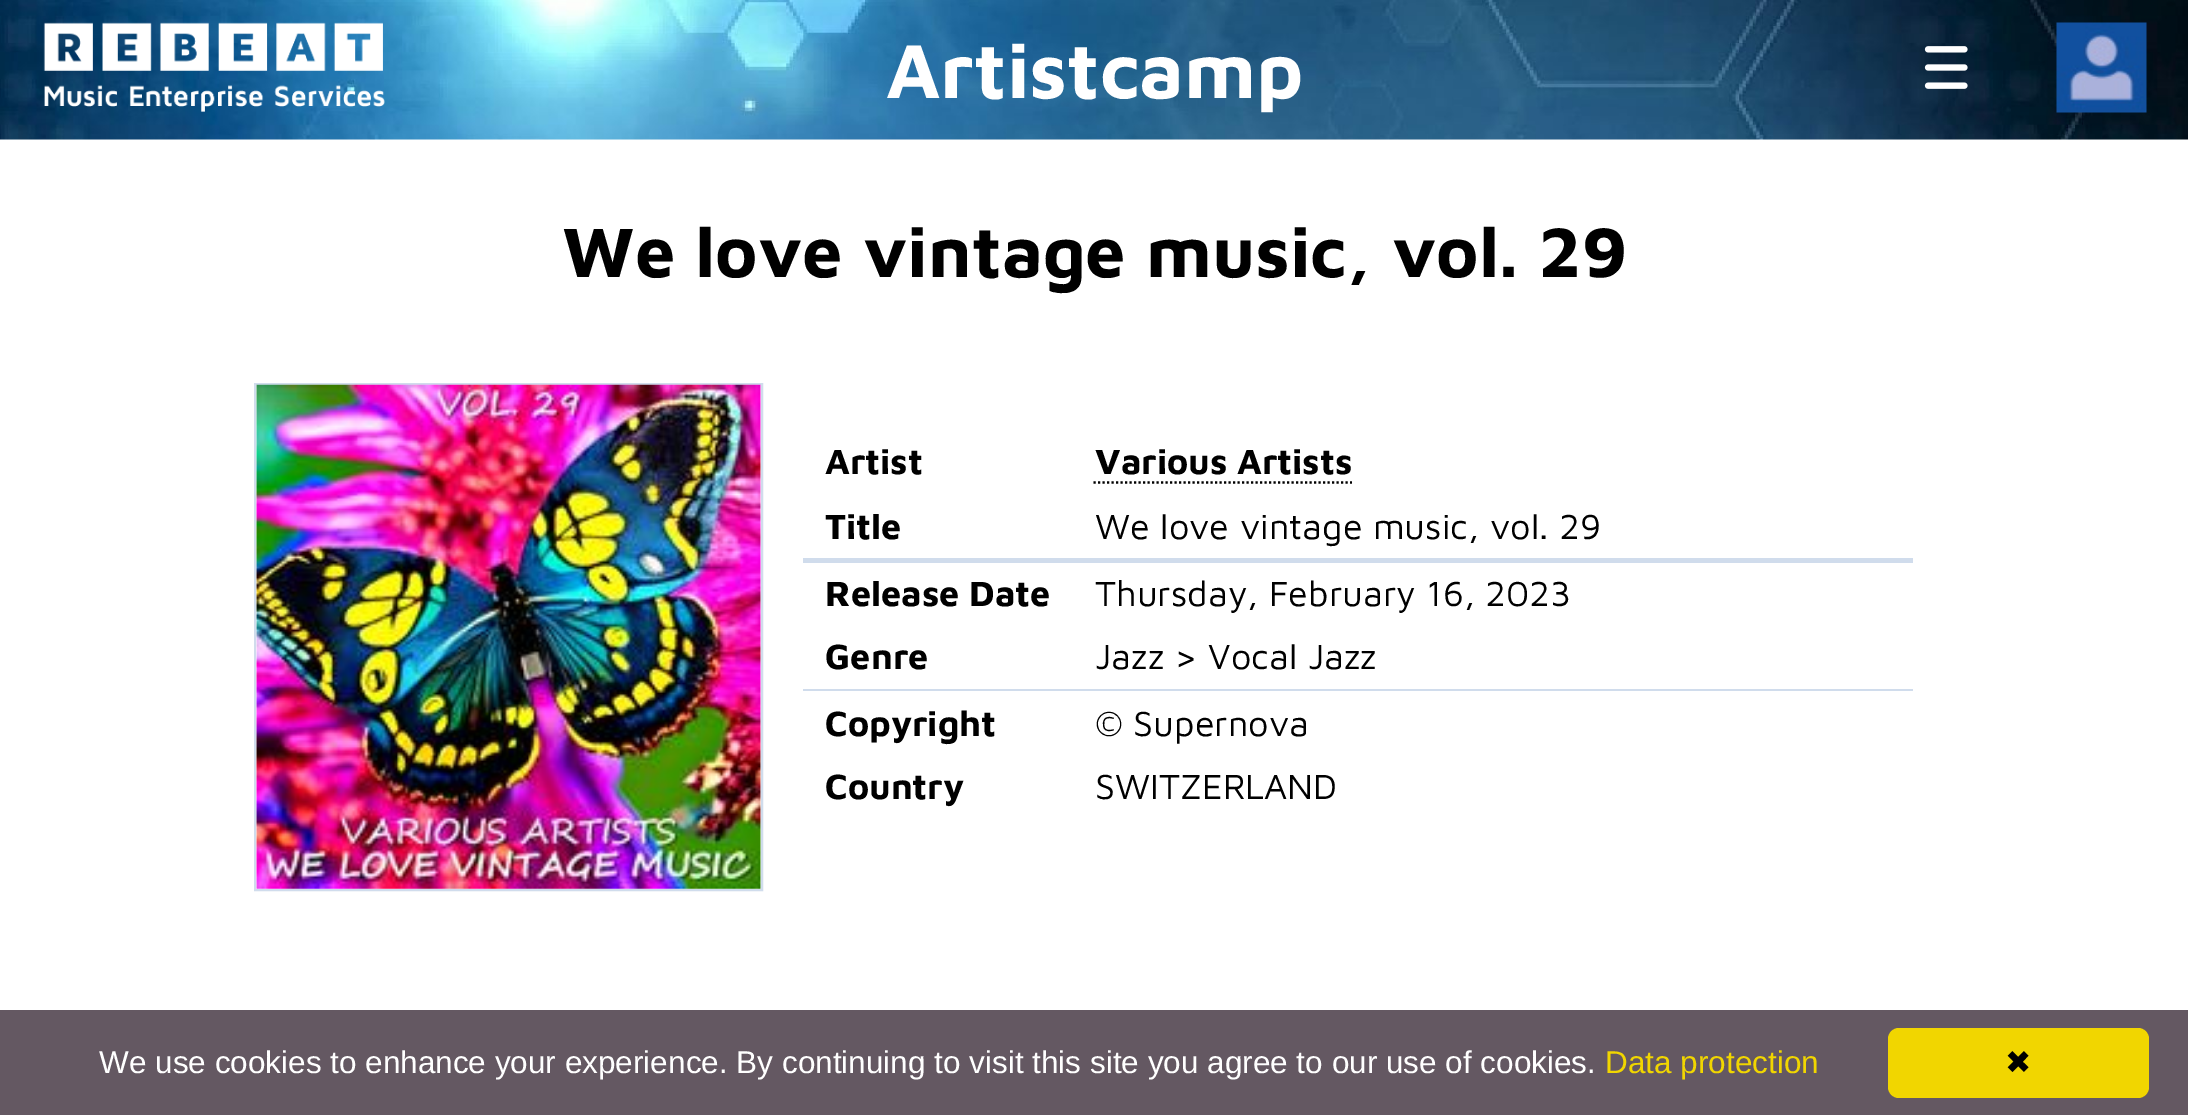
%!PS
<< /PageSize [2188 1115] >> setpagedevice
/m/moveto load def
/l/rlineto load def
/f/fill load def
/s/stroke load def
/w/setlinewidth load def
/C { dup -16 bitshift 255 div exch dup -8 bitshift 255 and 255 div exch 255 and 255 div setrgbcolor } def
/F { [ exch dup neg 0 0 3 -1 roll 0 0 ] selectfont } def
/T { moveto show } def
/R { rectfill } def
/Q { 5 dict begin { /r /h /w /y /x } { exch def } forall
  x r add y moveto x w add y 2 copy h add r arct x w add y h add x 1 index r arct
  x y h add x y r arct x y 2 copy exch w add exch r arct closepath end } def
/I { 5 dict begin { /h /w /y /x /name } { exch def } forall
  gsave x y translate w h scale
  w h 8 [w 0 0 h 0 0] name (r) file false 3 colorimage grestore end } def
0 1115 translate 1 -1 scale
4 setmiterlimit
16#FFFFFF C
0 0 2188 1115 R
(1.rgb) 0 0 2188 140 I
(2.rgb) 43 22 342 90 I
/MavenPro-Bold 78.75 F
(Artistcamp) 886 98 T
(3.rgb) 1924 46 44 43 I
(4.rgb) 2056 22 91 91 I
/MavenPro-Bold 72 F
16#000000 C
(We love vintage music, vol. 29) 562 277 T
16#D0DCEC C
2 w
255 384 507 506 rectstroke
(5.rgb) 256 384 505 505 I
/MavenPro-Bold 36 F
16#000000 C
(Artist) 825 474 T
2.2 w
[2.25 2.25] 0 setdash
1093.5 482.5 m 258.5 0 l s
(Various Artists) 1095 474 T
(Title) 825 539 T
/MavenPro-Regular 36 F
(We love vintage music, vol. 29) 1095 539 T
16#D0DCEC C
803 558 1110 5 R
/MavenPro-Bold 36 F
16#000000 C
(Release Date) 825 606 T
/MavenPro-Regular 36 F
(Thursday, February 16, 2023) 1095 606 T
/MavenPro-Bold 36 F
(Genre) 825 669 T
/MavenPro-Regular 36 F
(Jazz > Vocal Jazz) 1095 669 T
16#D0DCEC C
803 689 1110 2 R
/MavenPro-Bold 36 F
16#000000 C
(Copyright) 825 736 T
/MavenPro-Regular 36 F
(© Supernova) 1095 736 T
/MavenPro-Bold 36 F
(Country) 825 799 T
/MavenPro-Regular 36 F
(SWITZERLAND) 1095 799 T
16#645862 C
0 1010 2188 105 R
/LiberationSans-Regular 31.5 F
16#FFFFFF C
(We use cookies to enhance your experience. By continuing to visit this site you agree to our use of cookies.) 99 1073 T
16#F1D600 C
(Data protection) 1605 1073 T
1888 1028 261 70 11 Q f
/DejaVuSans-Regular 31.5 F
16#000000 C
(✖) 2005 1073 T
showpage
